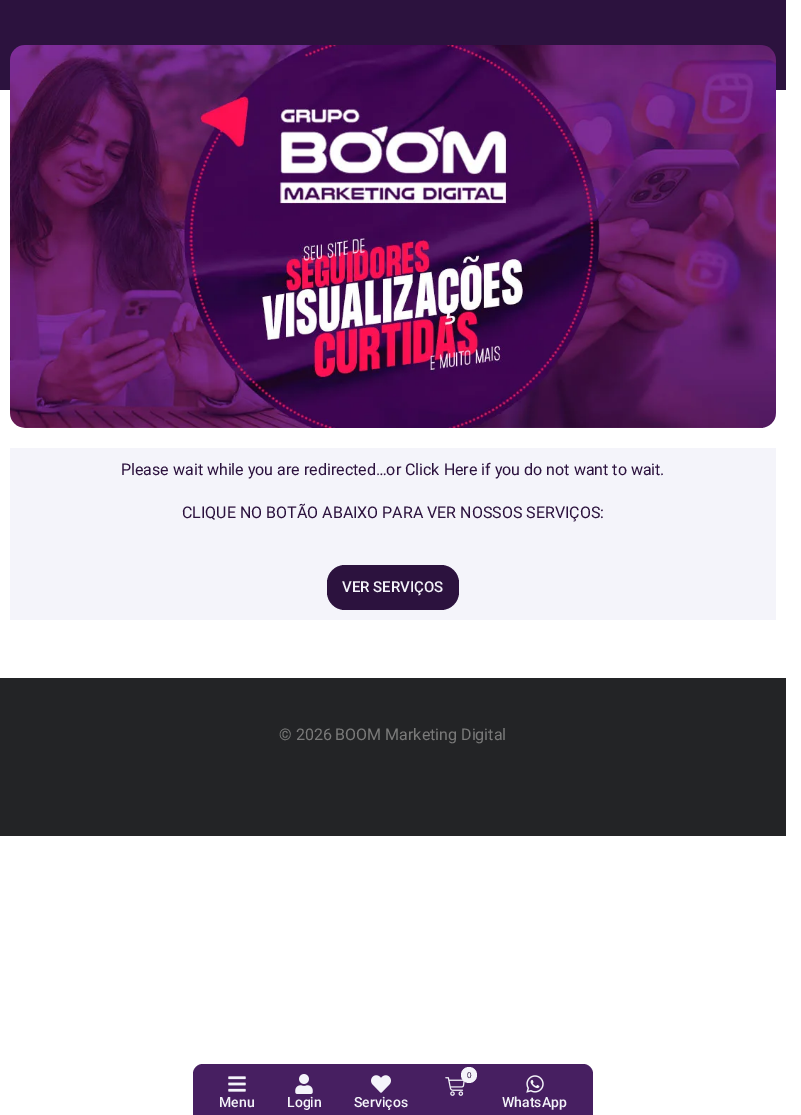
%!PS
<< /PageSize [801 1115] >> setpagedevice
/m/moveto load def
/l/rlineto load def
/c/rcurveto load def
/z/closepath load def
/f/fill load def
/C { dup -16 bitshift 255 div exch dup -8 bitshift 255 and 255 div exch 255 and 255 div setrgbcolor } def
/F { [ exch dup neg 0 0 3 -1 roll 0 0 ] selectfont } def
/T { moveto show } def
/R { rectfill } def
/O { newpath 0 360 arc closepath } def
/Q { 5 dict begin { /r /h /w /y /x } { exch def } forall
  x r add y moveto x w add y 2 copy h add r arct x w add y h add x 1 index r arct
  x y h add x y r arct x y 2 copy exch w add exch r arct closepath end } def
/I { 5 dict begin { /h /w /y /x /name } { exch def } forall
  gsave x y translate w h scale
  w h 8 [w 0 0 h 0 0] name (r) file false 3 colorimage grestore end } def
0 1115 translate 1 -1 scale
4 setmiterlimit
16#FFFFFF C
0 0 801 1115 R
16#2C123E C
0 0 786 90 R
(1.rgb) 10 45 766 383 I
16#F4F4FA C
10 448 766 172 R
/Roboto-Regular 16 F
16#2C123E C
(Please wait while you are redirected…or Click Here if you do not want to wait.) 121 475 T
(CLIQUE NO BOTÃO ABAIXO PARA VER NOSSOS SERVIÇOS:) 182 518 T
327 565 132 45 18 Q f
/Roboto-Medium 15 F
16#F4F4FA C
(VER SERVIÇOS) 342 592 T
16#232426 C
0 678 786 158 R
/Roboto-Regular 16 F
16#7A7A7A C
(© 2026 BOOM Marketing Digital) 279 740 T
16#471F61 C
203 1064 m 380 0 l 5.5 0 10 4.5 10 10 c 0 41 l -400 0 l 0 -41 l 0 -5.5 4.5 -10 10 -10 c z f
(2.rgb) 445 1077 20 19 I
16#F4F4FA C
469 1075 8 O f
/NotoSans-Regular 8 F
16#2C123E C
(0) 467 1078 T
(3.rgb) 228 1076 18 16 I
/Roboto-Medium 14 F
16#F4F4FA C
(Menu) 219 1107 T
(4.rgb) 295 1074 18 20 I
(Login) 287 1107 T
(5.rgb) 371 1075 20 18 I
(Serviços) 354 1107 T
(6.rgb) 526 1075 18 18 I
(WhatsApp) 502 1107 T
showpage
